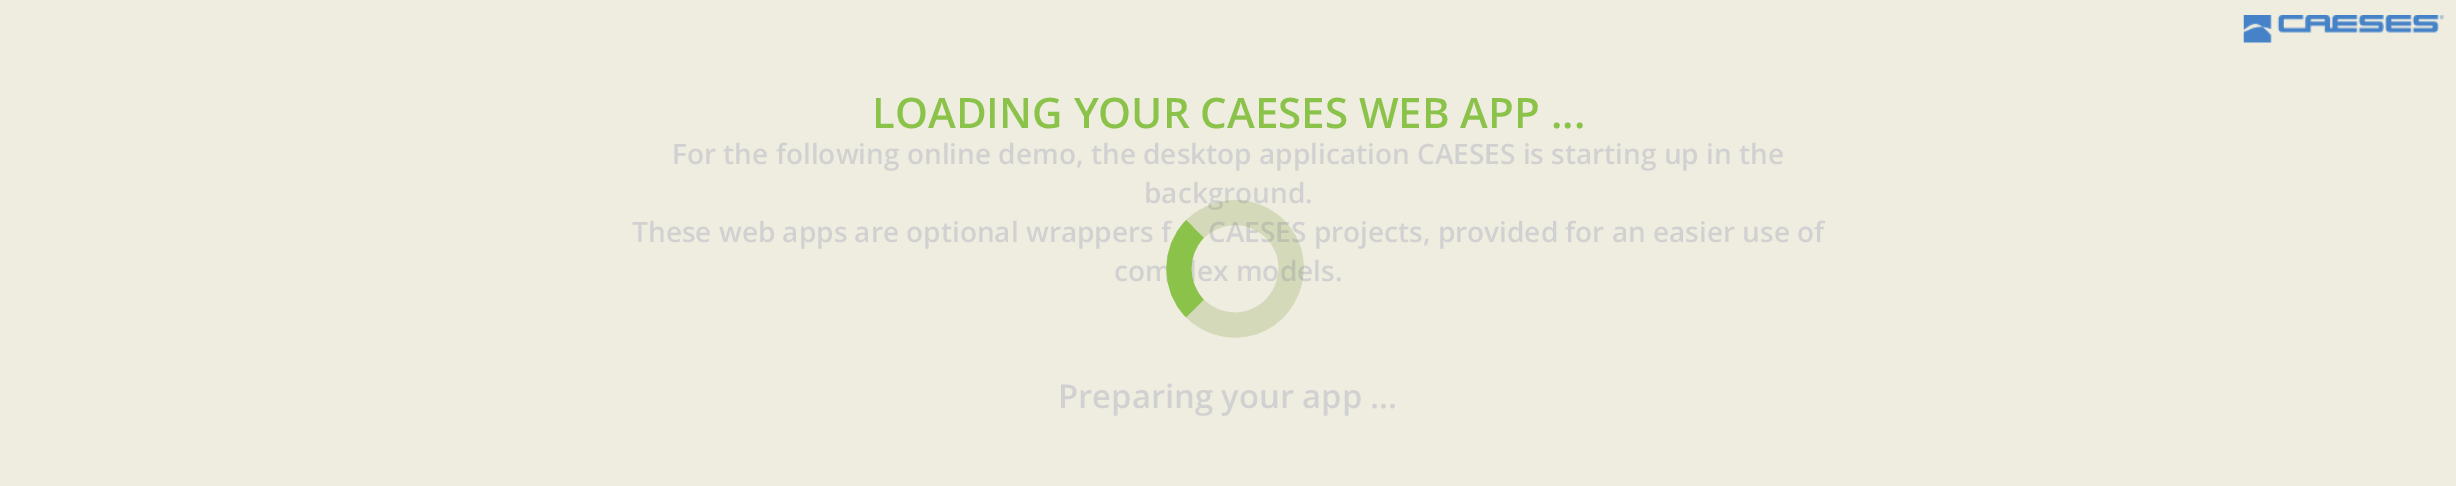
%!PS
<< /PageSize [2456 486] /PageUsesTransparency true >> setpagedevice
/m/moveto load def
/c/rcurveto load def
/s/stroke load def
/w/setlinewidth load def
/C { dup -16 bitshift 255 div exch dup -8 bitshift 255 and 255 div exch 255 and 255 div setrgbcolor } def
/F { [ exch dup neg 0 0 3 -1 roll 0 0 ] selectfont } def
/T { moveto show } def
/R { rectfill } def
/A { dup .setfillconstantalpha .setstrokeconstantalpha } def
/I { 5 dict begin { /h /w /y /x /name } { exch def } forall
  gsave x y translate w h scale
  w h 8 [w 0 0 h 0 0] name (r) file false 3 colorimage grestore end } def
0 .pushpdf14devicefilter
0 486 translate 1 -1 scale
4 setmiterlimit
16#EFEDE0 C
0 0 2456 486 R
(1.rgb) 2243 15 201 28 I
/OpenSans-SemiBold 42 F
16#8BC34A C
(LOADING YOUR CAESES WEB APP ...) 872 128 T
/OpenSans-SemiBold 28 F
16#D1D1D1 C
(For the following online demo, the desktop application CAESES is starting up in the) 672 164 T
(background.) 1144 203 T
(These web apps are optional wrappers f) 632 242 T
(CAESES projects, provided for an easier use of) 1208 242 T
(complex models.) 1114 281 T
0.2 A
16#668822 C
25 w
1195 229 m 13.5 -13 32.5 -19 51 -15.5 c 11 2.5 21 7.5 29 15.5 c 35 35 9.5 96 -40 96 c -15 0 -29.5 -6 -40 -16.5 c s
1 A
16#8BC34A C
1195 308.5 m -21.5 -21.5 -21.5 -58 0 -79.5 c s
/OpenSans-SemiBold 32.75 F
16#D1D1D1 C
(Preparing your app ...) 1058 408 T
.poppdf14devicefilter showpage
